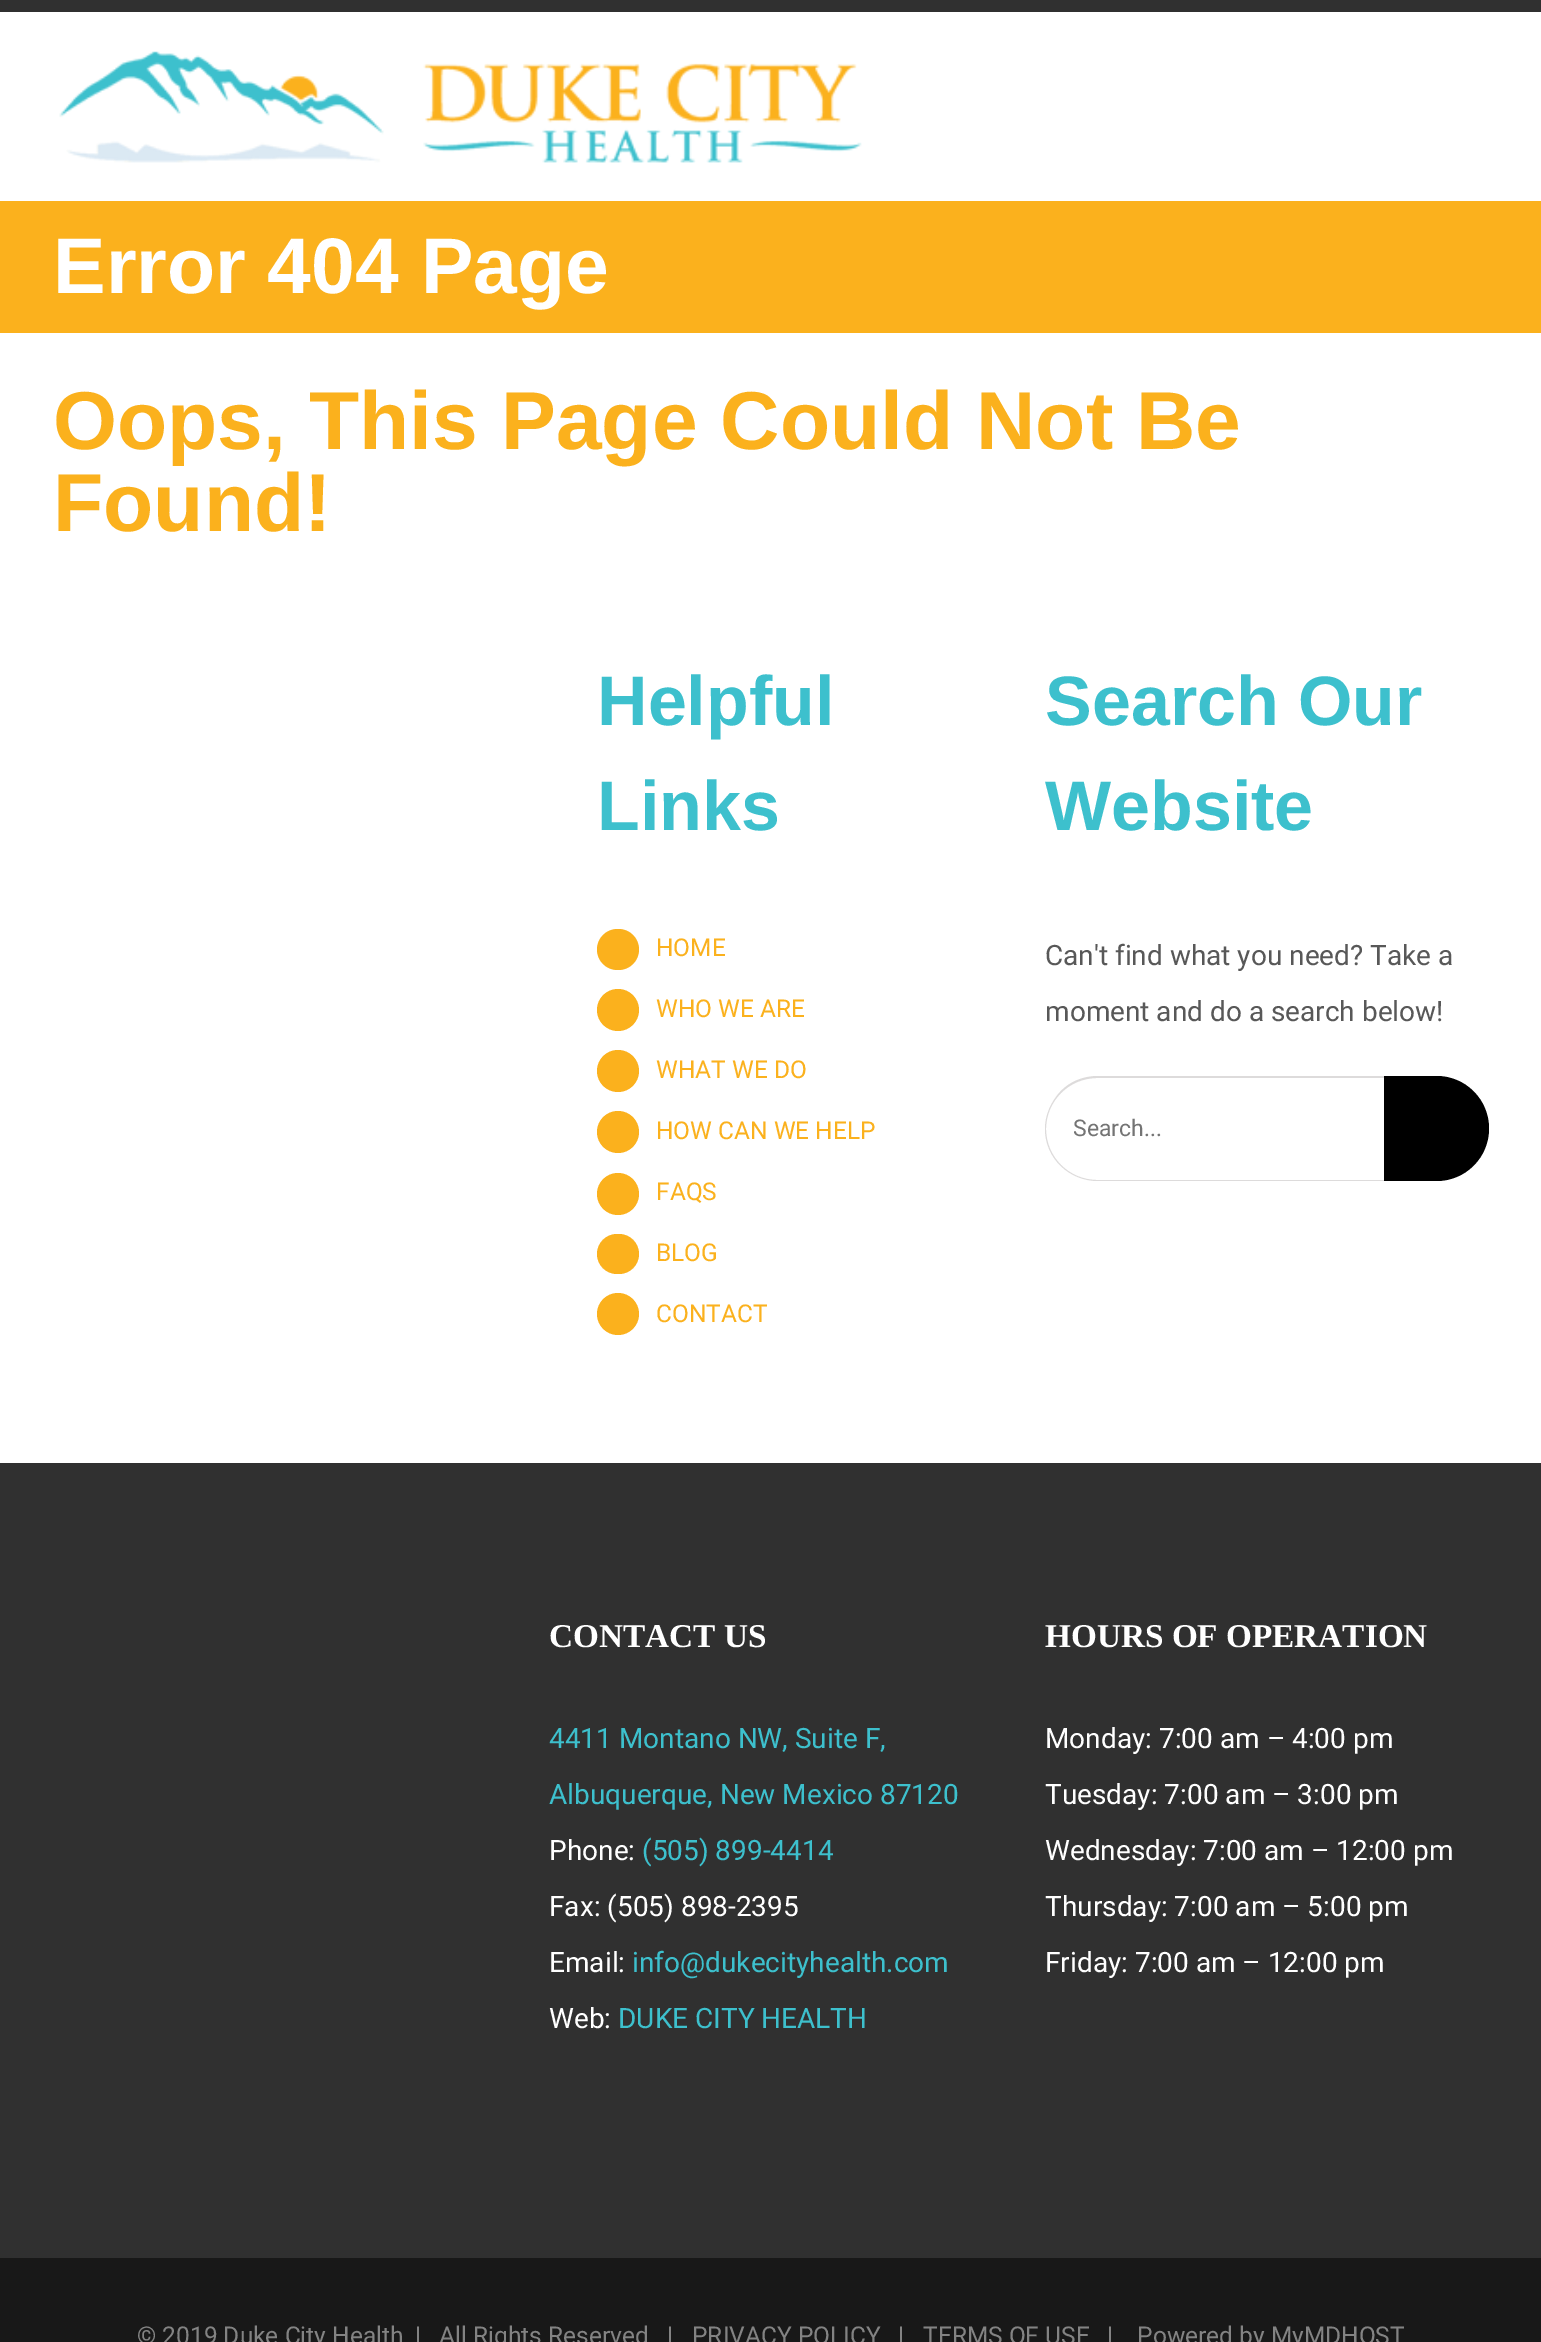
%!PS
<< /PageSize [1541 2342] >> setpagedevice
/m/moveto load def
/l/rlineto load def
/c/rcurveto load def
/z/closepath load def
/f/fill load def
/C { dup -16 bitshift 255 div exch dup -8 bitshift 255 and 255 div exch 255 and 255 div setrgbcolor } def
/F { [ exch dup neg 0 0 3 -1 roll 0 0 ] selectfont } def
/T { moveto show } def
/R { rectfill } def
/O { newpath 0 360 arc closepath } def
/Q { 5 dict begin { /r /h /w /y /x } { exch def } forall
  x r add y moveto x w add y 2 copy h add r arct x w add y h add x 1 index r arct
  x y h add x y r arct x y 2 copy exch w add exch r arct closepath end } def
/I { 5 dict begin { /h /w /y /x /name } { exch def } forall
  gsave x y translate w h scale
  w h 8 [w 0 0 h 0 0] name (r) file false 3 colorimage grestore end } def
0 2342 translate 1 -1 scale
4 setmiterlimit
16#FFFFFF C
0 0 1541 2342 R
16#303030 C
0 0 1541 12 R
(1.rgb) 59 51 803 112 I
16#FBB11D C
0 201 1541 132 R
/LiberationSans-Bold 78.75 F
16#FFFFFF C
(Error 404 Page) 53 293 T
/LiberationSans-Bold 82.25 F
16#FBB11D C
(Oops, This Page Could Not Be) 53 449 T
(Found!) 53 531 T
/LiberationSans-Bold 70 F
16#3DC0CD C
(Helpful) 597 725 T
(Links) 597 830 T
16#FBB11D C
597 929 42 41 20.5 Q f
/Roboto-Regular 24.5 F
(HOME) 656 956 T
618 1010 21 O f
(WHO WE ARE) 656 1017 T
618 1071 21 O f
(WHAT WE DO) 656 1078 T
618 1132 21 O f
(HOW CAN WE HELP) 656 1139 T
618 1194 21 O f
(FAQS) 656 1200 T
597 1234 42 40 20 Q f
(BLOG) 656 1261 T
618 1314 21 O f
(CONTACT) 656 1322 T
/LiberationSans-Bold 70 F
16#3DC0CD C
(Search Our) 1045 725 T
(Website) 1045 830 T
/Roboto-Regular 28 F
16#585858 C
(Can't find what you need? Take a) 1045 965 T
(moment and do a search below!) 1045 1021 T
16#DDDBDB C
1097 1078 m 287 0 l 0 -2 l -286 0 l -15 0 -29 6 -38 16 c -9 10 -15 23 -15 37 c 0 29 24 52 53 52 c 286 0 l 0 -1 l -287 0 l -28 0 -51 -23 -51 -51 c 0 -28 23 -51 51 -51 c z f
/Roboto-Regular 23 F
16#747474 C
(Search...) 1073 1136 T
16#000000 C
1384 1076 m 52.5 0 l 29 0 52.5 23.5 52.5 52.5 c 0 29 -23.5 52.5 -52.5 52.5 c -52.5 0 l z f
16#303030 C
0 1463 1541 795 R
/LiberationSerif-Bold 33.25 F
16#FFFFFF C
(CONTACT US) 549 1647 T
/Roboto-Regular 28 F
16#3DC0CD C
(4411 Montano NW, Suite F,) 549 1748 T
(Albuquerque, New Mexico 87120) 549 1804 T
16#FFFFFF C
(Phone:) 549 1860 T
16#3DC0CD C
(\(505\) 899-4414) 642 1860 T
16#FFFFFF C
(Fax: \(505\) 898-2395) 549 1916 T
(Email:) 549 1972 T
16#3DC0CD C
(info@dukecityhealth.com) 632 1972 T
16#FFFFFF C
(Web:) 549 2028 T
16#3DC0CD C
(DUKE CITY HEALTH) 618 2028 T
/LiberationSerif-Bold 33.25 F
16#FFFFFF C
(HOURS OF OPERATION) 1045 1647 T
/Roboto-Regular 28 F
(Monday: 7:00 am – 4:00 pm) 1045 1748 T
(Tuesday: 7:00 am – 3:00 pm) 1045 1804 T
(Wednesday: 7:00 am – 12:00 pm) 1045 1860 T
(Thursday: 7:00 am – 5:00 pm) 1045 1916 T
(Friday: 7:00 am – 12:00 pm) 1045 1972 T
16#181818 C
0 2258 1541 84 R
/Roboto-Regular 24.5 F
16#838383 C
(© 2019 Duke City Health) 137 2344 T
(|   All Rights Reserved   |) 415 2344 T
(PRIVACY POLICY) 692 2344 T
(|) 898 2344 T
(TERMS OF USE) 923 2344 T
(|    Powered by MyMDHOST) 1107 2344 T
showpage
